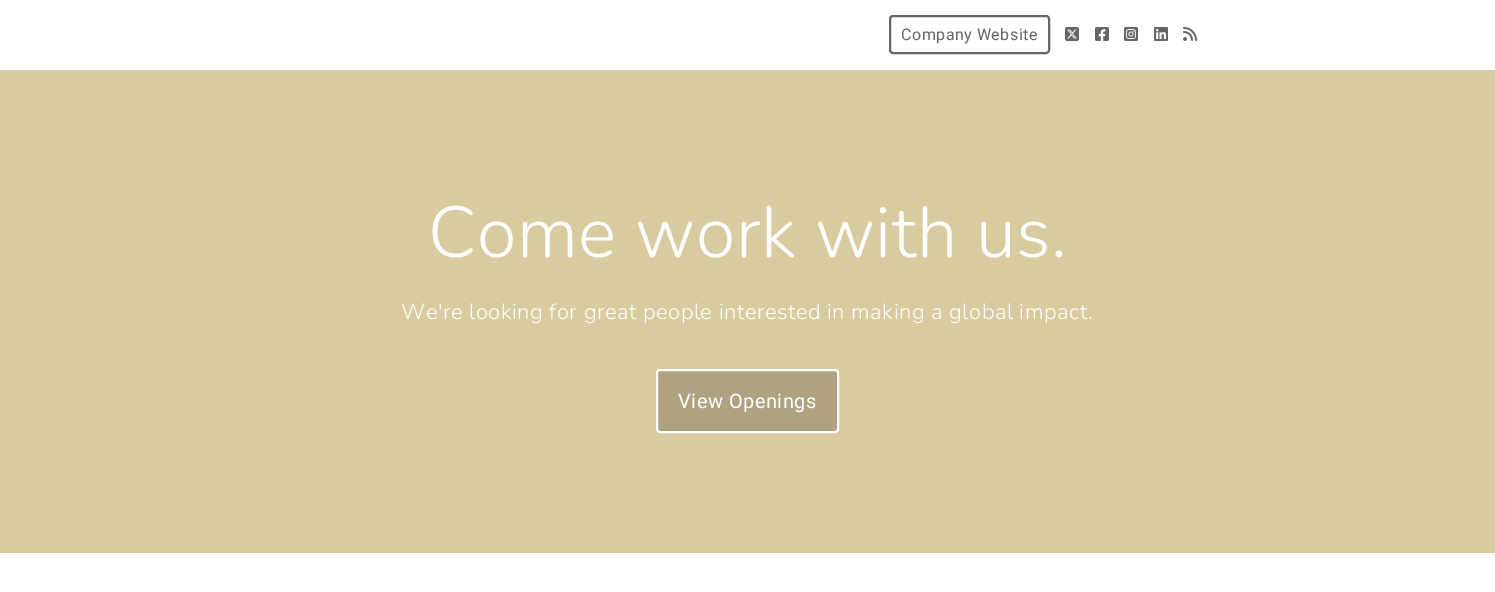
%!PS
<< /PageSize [1495 592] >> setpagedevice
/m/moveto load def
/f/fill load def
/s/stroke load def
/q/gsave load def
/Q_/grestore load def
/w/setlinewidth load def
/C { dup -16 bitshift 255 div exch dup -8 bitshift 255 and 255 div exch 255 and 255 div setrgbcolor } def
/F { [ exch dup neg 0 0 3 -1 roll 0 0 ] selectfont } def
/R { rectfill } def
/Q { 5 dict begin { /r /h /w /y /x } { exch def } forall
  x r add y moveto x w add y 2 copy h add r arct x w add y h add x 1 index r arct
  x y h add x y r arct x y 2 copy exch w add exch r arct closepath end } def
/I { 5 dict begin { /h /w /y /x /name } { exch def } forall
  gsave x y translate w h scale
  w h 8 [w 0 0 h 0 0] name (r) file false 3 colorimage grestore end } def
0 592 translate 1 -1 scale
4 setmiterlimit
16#FFFFFF C
0 0 1495 592 R
16#666666 C
2 w
890 16 159 37 3 Q s
/Roboto-Regular 16 F
901 40 m .5 0 (Company Website) ashow
(1.rgb) 1065 27 14 14 I
(2.rgb) 1095 27 14 14 I
(3.rgb) 1124 27 14 14 I
(4.rgb) 1154 27 14 14 I
(5.rgb) 1183 27 14 14 I
16#D9CBA0 C
0 70 1495 483 R
/Nunito-Light 72 F
16#FFFFFF C
428 257 m .5 0 (Come work with us.) ashow
/Nunito-Light 22 F
401 319 m .5 0 (We're looking for great people interested in making a global impact.) ashow
16#AEA280 C
657 370 181 62 3 Q q f Q_
16#FFFFFF C
s
/Roboto-Regular 20 F
678 408 m .5 0 (View Openings) ashow
showpage
